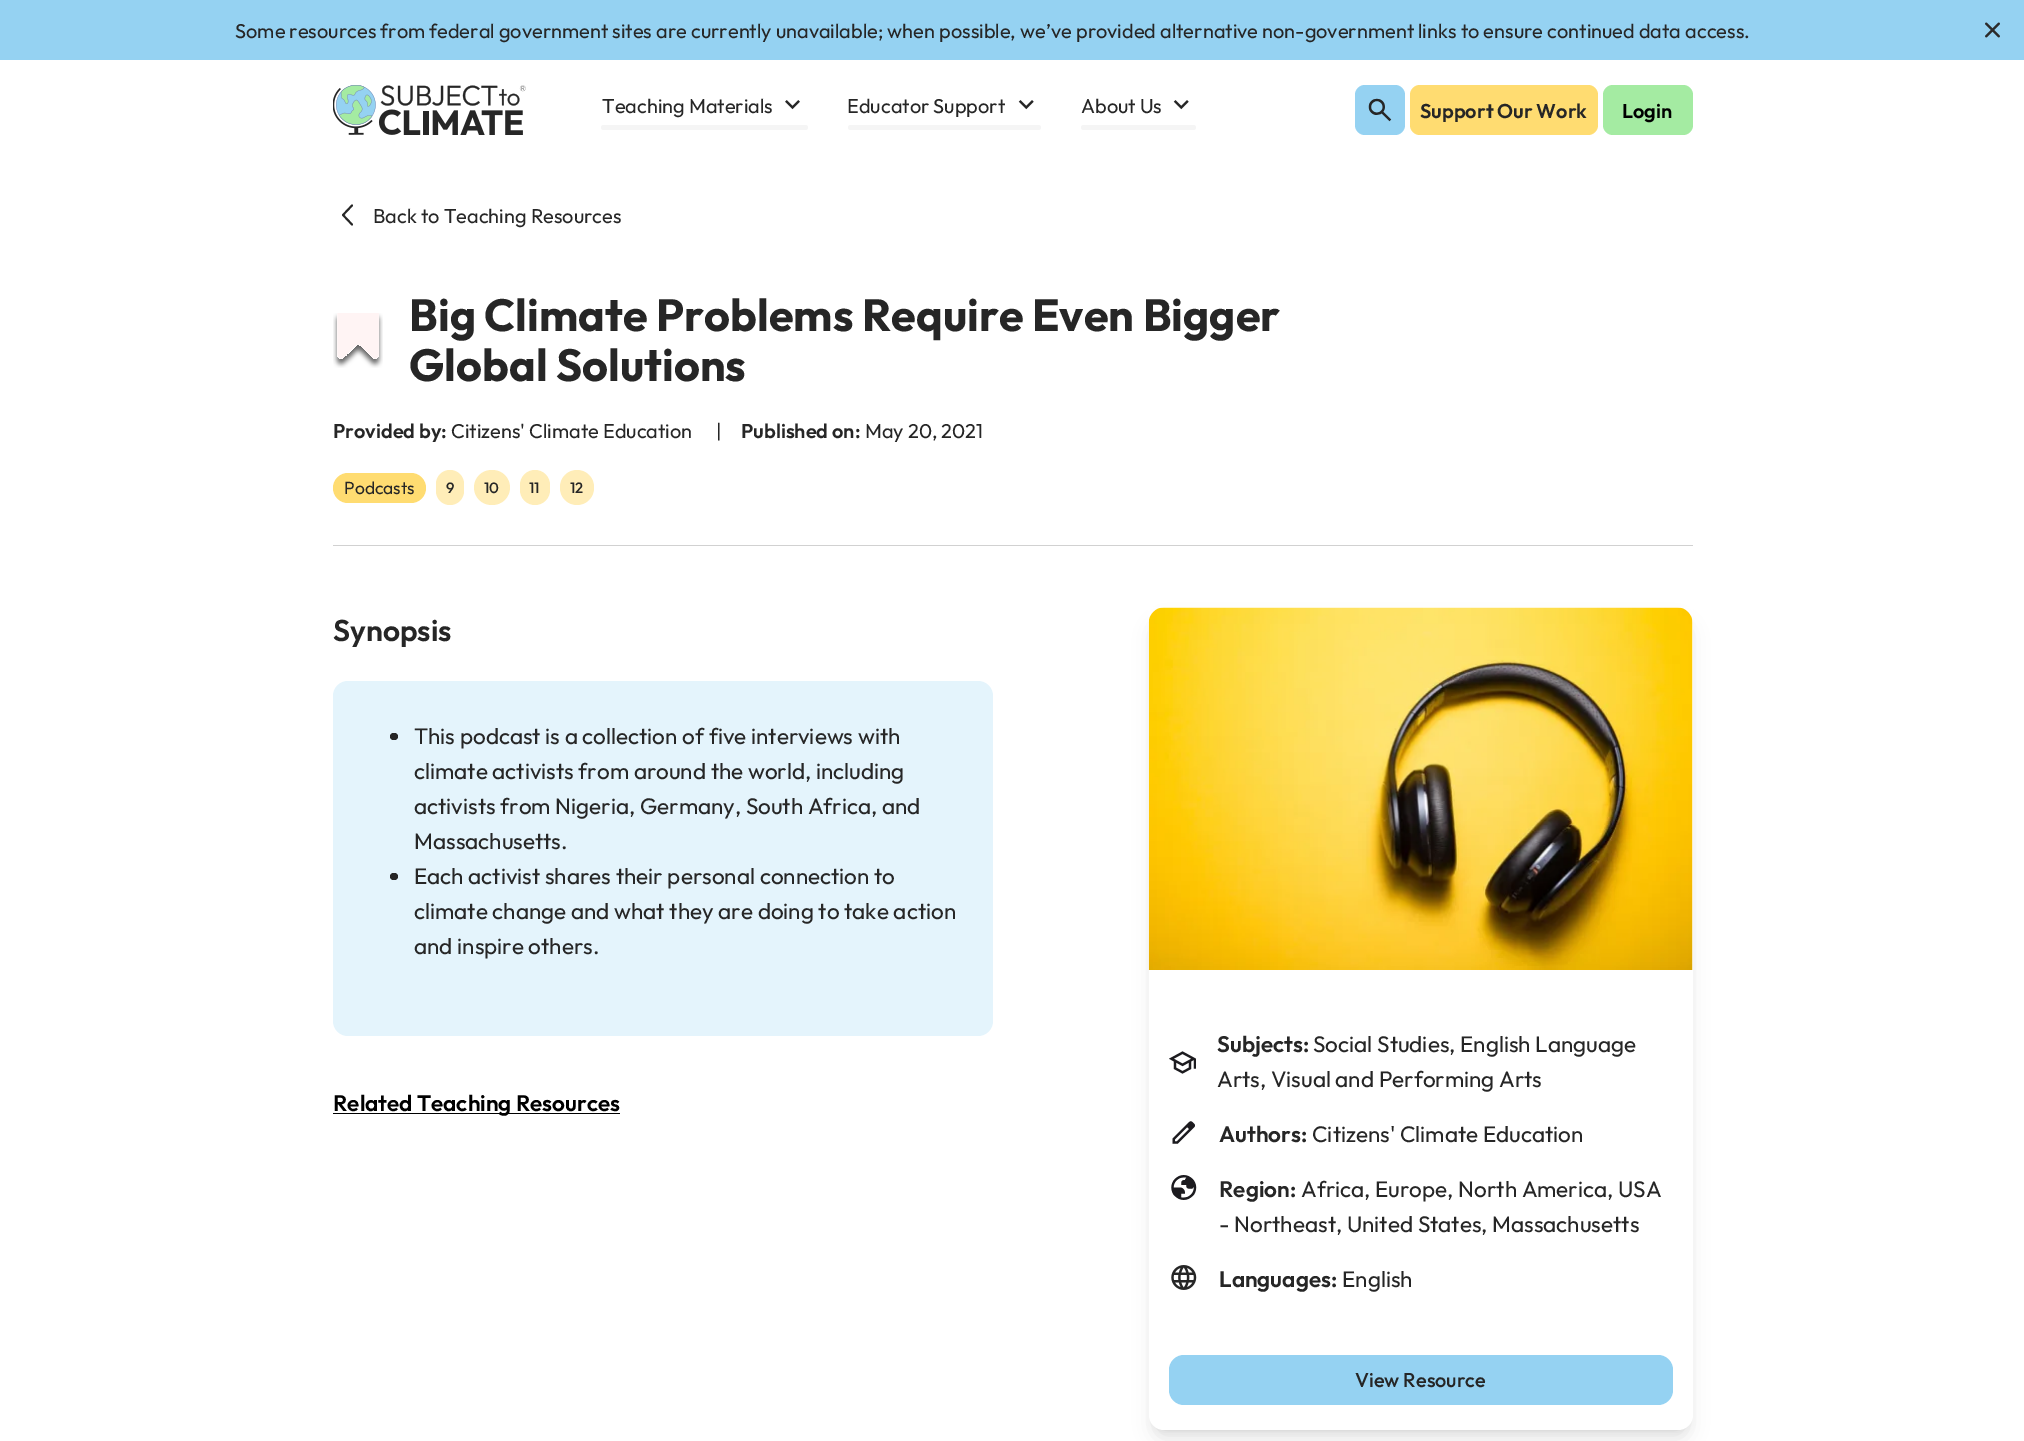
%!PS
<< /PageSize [2024 1441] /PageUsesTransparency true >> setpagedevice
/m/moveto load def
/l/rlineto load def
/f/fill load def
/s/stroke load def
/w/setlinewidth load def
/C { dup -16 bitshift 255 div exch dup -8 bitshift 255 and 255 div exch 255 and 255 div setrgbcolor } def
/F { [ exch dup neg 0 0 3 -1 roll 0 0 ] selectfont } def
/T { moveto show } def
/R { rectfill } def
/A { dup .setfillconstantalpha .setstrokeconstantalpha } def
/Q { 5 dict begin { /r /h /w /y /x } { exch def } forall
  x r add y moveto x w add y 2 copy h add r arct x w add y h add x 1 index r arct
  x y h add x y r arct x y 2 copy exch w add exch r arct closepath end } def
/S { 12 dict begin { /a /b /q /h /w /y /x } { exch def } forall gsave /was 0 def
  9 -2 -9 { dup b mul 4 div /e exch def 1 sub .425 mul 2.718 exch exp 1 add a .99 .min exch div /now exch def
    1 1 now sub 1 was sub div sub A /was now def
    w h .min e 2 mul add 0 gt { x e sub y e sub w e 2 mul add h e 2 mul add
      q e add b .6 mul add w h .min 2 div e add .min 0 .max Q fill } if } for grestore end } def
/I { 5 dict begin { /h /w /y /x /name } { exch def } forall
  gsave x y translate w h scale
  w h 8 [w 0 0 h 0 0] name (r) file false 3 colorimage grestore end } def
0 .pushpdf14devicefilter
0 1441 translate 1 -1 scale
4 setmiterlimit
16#FFFFFF C
0 0 2024 1441 R
16#95D2F2 C
0 0 2024 60 R
/Outfit-Regular 20 F
16#262626 C
(Some resources from federal government sites are currently unavailable; when possible, we’ve provided alternative non-government links to ensure continued data access.) 235 38 T
(1.rgb) 1985 22 15 16 I
(2.rgb) 333 85 193 50 I
(Teaching Materials) 602 113 T
(3.rgb) 785 100 15 10 I
16#F5F5F5 C
601 125 207 5 2.5 Q f
16#262626 C
(Educator Support) 847 113 T
(4.rgb) 1018 100 16 10 I
16#F5F5F5 C
848 125 193 5 2.5 Q f
16#262626 C
(About Us) 1081 113 T
(4.rgb) 1173 100 16 10 I
16#F5F5F5 C
1081 125 115 5 2.5 Q f
16#95D2F2 C
1355 85 50 50 10 Q f
(5.rgb) 1368 98 24 24 I
16#FFDC71 C
1410 85 188 50 10 Q f
/Outfit-SemiBold 20 F
16#262626 C
(Support Our Work) 1420 118 T
16#A4EBA2 C
1603 85 90 50 10 Q f
16#000000 C
(Login) 1622 118 T
16#262626 C
1.9 w
1 setlinecap
1 setlinejoin
352 224.5 m -9 -9.5 l 9 -9.5 l s
/Outfit-Regular 20 F
(Back to Teaching Resources) 373 223 T
(6.rgb) 333 313 50 55 I
/Outfit-Bold 45 F
(Big Climate Problems Require Even Bigger) 409 331 T
(Global Solutions) 409 381 T
/Outfit-SemiBold 20 F
(Provided by:) 333 438 T
/Outfit-Regular 20 F
(Citizens' Climate Education) 451 438 T
(|) 716 438 T
/Outfit-SemiBold 20 F
(Published on:) 741 438 T
/Outfit-Regular 20 F
(May 20, 2021) 865 438 T
16#FFDC71 C
333 473 93 30 15 Q f
/Outfit-Regular 17.5 F
16#262626 C
(Podcasts) 344 494 T
16#FFEDB8 C
436 470 28 35 14 Q f
/Outfit-Medium 15 F
16#262626 C
(9) 446 493 T
16#FFEDB8 C
474 470 36 35 17.5 Q f
16#262626 C
(10) 484 493 T
16#FFEDB8 C
520 470 30 35 15 Q f
16#262626 C
(11) 529 493 T
16#FFEDB8 C
560 470 34 35 17 Q f
16#262626 C
(12) 570 493 T
16#D1D1D1 C
333 545 1360 1 R
/Outfit-SemiBold 30 F
16#262626 C
(Synopsis) 333 641 T
16#E4F4FC C
333 681 660 355 15 Q f
16#262626 C
390 733 8 7 3.5 Q f
/Outfit-Regular 22.5 F
(This podcast is a collection of five interviews with) 414 744 T
(climate activists from around the world, including) 414 779 T
(activists from Nigeria, Germany, South Africa, and) 414 814 T
(Massachusetts.) 414 849 T
390 873 8 7 3.5 Q f
(Each activist shares their personal connection to) 414 884 T
(climate change and what they are doing to take action) 414 919 T
(and inspire others.) 414 954 T
16#000000 C
333 1113 287 1 R
/Outfit-SemiBold 22.5 F
(Related Teaching Resources) 333 1111 T
1154 618 534 812 10 4 .1 S
1153 624 536 815 11 9.5 .1 S
16#FFFFFF C
1149 608 544 822 15 Q f
(7.rgb) 1148 607 545 363 I
(8.rgb) 1169 1051 27 23 I
16#262626 C
(Subjects:) 1217 1052 T
/Outfit-Regular 22.5 F
(Social Studies, English Language) 1313 1052 T
(Arts, Visual and Performing Arts) 1217 1087 T
(9.rgb) 1172 1121 23 23 I
/Outfit-SemiBold 22.5 F
(Authors:) 1219 1142 T
/Outfit-Regular 22.5 F
(Citizens' Climate Education) 1312 1142 T
(10.rgb) 1171 1175 26 25 I
/Outfit-SemiBold 22.5 F
(Region:) 1219 1197 T
/Outfit-Regular 22.5 F
(Africa, Europe, North America, USA) 1301 1197 T
(- Northeast, United States, Massachusetts) 1219 1232 T
(11.rgb) 1171 1265 26 25 I
/Outfit-SemiBold 22.5 F
(Languages:) 1219 1287 T
/Outfit-Regular 22.5 F
(English) 1342 1287 T
16#95D2F2 C
1169 1355 504 50 15 Q f
/Outfit-Medium 20 F
16#262626 C
(View Resource) 1355 1387 T
.poppdf14devicefilter showpage
